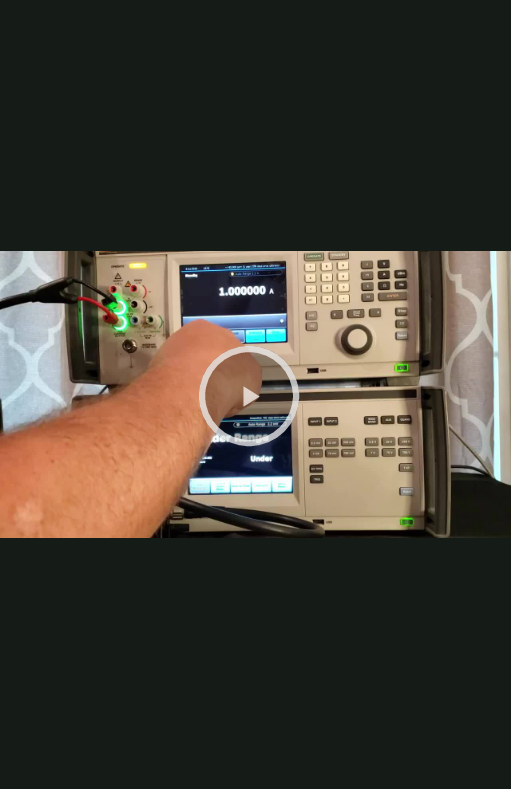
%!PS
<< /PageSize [511 789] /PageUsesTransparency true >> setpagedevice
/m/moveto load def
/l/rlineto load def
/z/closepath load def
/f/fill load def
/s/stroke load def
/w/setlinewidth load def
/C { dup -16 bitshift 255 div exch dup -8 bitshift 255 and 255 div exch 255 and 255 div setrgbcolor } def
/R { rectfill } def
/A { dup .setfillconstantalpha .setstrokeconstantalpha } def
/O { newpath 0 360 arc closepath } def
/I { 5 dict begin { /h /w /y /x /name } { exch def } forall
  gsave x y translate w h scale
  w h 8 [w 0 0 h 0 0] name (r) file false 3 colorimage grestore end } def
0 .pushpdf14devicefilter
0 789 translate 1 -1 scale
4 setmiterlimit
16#151B17 C
0 0 511 789 R
(1.rgb) 0 251 511 287 I
0.32 A
16#000000 C
249 396 50 O f
0.7 A
16#FFFFFF C
6 w
249 396 47 O s
243.5 386.5 m 0 20 l 16 -10 l z f
.poppdf14devicefilter showpage
